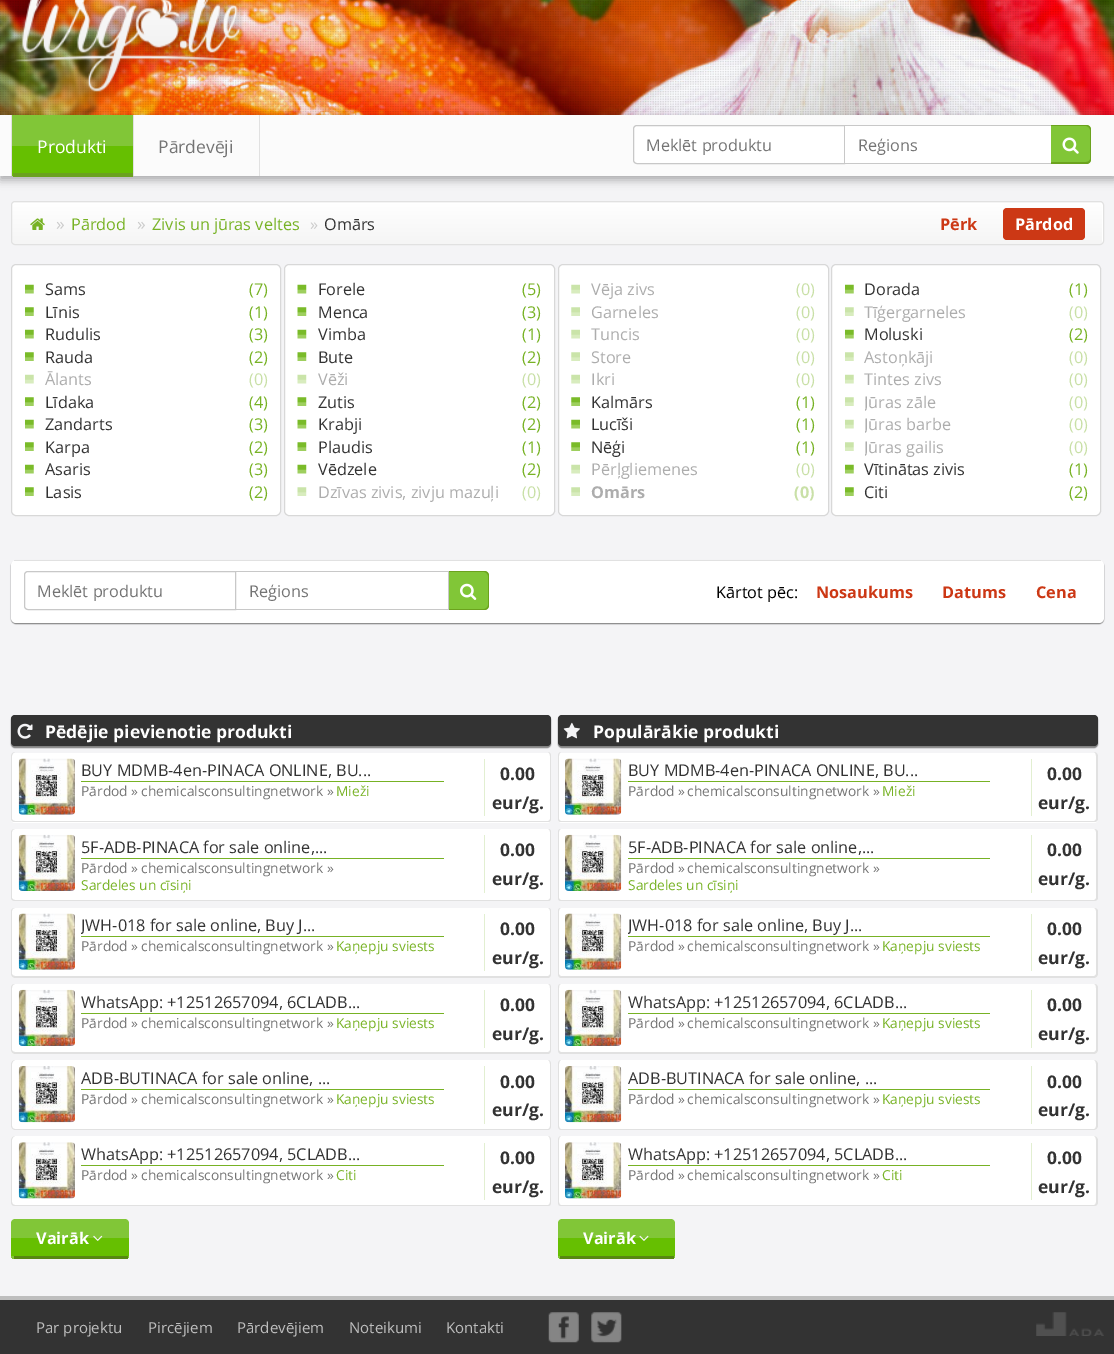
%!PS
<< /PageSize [1114 1354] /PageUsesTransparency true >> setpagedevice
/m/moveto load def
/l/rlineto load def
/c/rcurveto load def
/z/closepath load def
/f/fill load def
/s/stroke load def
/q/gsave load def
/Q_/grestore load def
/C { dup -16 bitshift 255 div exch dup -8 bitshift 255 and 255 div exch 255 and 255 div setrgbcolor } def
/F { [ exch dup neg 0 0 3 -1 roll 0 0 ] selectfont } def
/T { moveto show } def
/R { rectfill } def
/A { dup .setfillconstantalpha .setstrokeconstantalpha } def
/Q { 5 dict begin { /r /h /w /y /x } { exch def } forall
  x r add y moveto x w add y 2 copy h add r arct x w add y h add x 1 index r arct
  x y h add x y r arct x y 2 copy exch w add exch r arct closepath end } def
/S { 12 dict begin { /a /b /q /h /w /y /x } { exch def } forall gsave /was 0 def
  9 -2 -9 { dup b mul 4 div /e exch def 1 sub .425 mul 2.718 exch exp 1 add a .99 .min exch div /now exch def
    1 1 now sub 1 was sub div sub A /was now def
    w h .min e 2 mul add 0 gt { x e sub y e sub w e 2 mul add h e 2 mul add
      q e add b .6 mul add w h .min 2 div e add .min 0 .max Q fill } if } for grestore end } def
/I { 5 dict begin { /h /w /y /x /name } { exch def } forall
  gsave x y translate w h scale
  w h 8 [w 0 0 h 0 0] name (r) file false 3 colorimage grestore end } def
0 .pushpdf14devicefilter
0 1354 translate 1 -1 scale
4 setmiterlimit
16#F4F4F6 C
0 0 1114 1354 R
(1.rgb) 0 0 1114 115 I
(2.rgb) 11 0 232 97 I
16#333333 C
0 119 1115 61 0 4.5 .38 S
16#FBFBFB C
0 115 1114 61 R
16#81C637 C
12 115 121 31 R
16#66BF01 C
12 146 121 30 R
16#6BA11F C
13 173 120 4 R
16#E1E1E1 C
133 115 1 61 R
11 115 1 61 R
/OpenSans-Regular 17.5 F
16#FFFFFF C
(Produkti) 37 153 T
16#E1E1E1 C
259 115 1 61 R
16#747474 C
(Pārdevēji) 158 153 T
16#FFFFFF C
637 125.5 m 207.5 0 l 0 38 l -207.5 0 l -2 0 -3.5 -1.5 -3.5 -3.5 c 0 -31 l 0 -2 1.5 -3.5 3.5 -3.5 c z q f Q_
16#C8C8C8 C
s
/OpenSans-Regular 16.25 F
16#747474 C
(Meklēt produktu) 646 151 T
16#FFFFFF C
845 126 206 37 R
16#C8C8C8 C
845 125 206 1 R
845 163 206 1 R
16#747474 C
(Reģions) 858 151 T
16#81C637 C
1051 125 m 35 0 l 3 0 5 2 5 5 c 0 29 l 0 3 -2 5 -5 5 c -35 0 l z f
16#6BA21E C
1051 125 m 35 0 l 3 0 5 2 5 5 c 0 29 l 0 3 -2 5 -5 5 c -35 0 l z 1051 126 m 35 0 l 2 0 4 2 4 4 c 0 29 l 0 2 -2 3 -4 3 c -35 0 l z eofill
(3.rgb) 1062 137 17 17 I
16#FBFBFB C
11 201 1093 44 4 Q f
q
11 201 1093 44 4 Q clip newpath
q 11 203 m 1093 0 l 0 41 l -1093 0 l z clip newpath
<< /ShadingType 2 /ColorSpace /DeviceRGB /Coords [558 202 558 244] /Extend [true true] /Function << /FunctionType 2 /Domain [0 1] /C0 [1 1 1] /C1 [.961 .961 .961] /N 1 >> >> shfill Q_
Q_
16#FFFFFF C
15 204 m 1085 0 l 1 0 2 1 2 2 c 0 38 l 0 -1 1 -2 1 -2 c 0 -36 l 0 -2 -1 -3 -3 -3 c -1084 0 l -2 0 -2 1 -3 2 c z f
16#E1E1E1 C
11.5 201.5 1092 43 3.5 Q s
(4.rgb) 30 218 15 12 I
/OpenSans-Regular 17.5 F
16#CCCCCC C
(») 56 230 T
/OpenSans-Regular 16.25 F
16#77B224 C
(Pārdod) 71 230 T
/OpenSans-Regular 17.5 F
16#CCCCCC C
(») 137 230 T
/OpenSans-Regular 16.25 F
16#77B224 C
(Zivis un jūras veltes) 152 230 T
16#CCCCCC C
(») 310 230 T
16#333333 C
(Omārs) 324 230 T
/OpenSans-Bold 16.25 F
16#CC3815 C
(Pērk) 940 230 T
1003 208 82 32 4 Q f
16#FFFFFF C
(Pārdod) 1015 230 T
11.5 264.5 269 251 4.5 Q q f Q_
16#D8D8D8 C
s
(5.rgb) 25 284 9 10 I
/OpenSans-Regular 16.25 F
16#333333 C
(Sams) 45 295 T
16#77B224 C
(\(7\)) 249 295 T
(6.rgb) 25 307 9 9 I
16#333333 C
(Līnis) 45 318 T
16#77B224 C
(\(1\)) 249 318 T
(5.rgb) 25 329 9 10 I
16#333333 C
(Rudulis) 45 340 T
16#77B224 C
(\(3\)) 249 340 T
(6.rgb) 25 352 9 9 I
16#333333 C
(Rauda) 45 363 T
16#77B224 C
(\(2\)) 249 363 T
(7.rgb) 25 374 9 10 I
16#ADADAD C
(Ālants) 45 385 T
16#C9E0A7 C
(\(0\)) 249 385 T
(6.rgb) 25 397 9 9 I
16#333333 C
(Līdaka) 45 408 T
16#77B224 C
(\(4\)) 249 408 T
(5.rgb) 25 419 9 10 I
16#333333 C
(Zandarts) 45 430 T
16#77B224 C
(\(3\)) 249 430 T
(6.rgb) 25 442 9 9 I
16#333333 C
(Karpa) 45 453 T
16#77B224 C
(\(2\)) 249 453 T
(5.rgb) 25 464 9 10 I
16#333333 C
(Asaris) 45 475 T
16#77B224 C
(\(3\)) 249 475 T
(6.rgb) 25 487 9 9 I
16#333333 C
(Lasis) 45 498 T
16#77B224 C
(\(2\)) 249 498 T
16#FFFFFF C
284.5 264.5 270 251 4.5 Q q f Q_
16#D8D8D8 C
s
(8.rgb) 297 284 10 10 I
16#333333 C
(Forele) 318 295 T
16#77B224 C
(\(5\)) 522 295 T
(9.rgb) 297 307 10 9 I
16#333333 C
(Menca) 318 318 T
16#77B224 C
(\(3\)) 522 318 T
(8.rgb) 297 329 10 10 I
16#333333 C
(Vimba) 318 340 T
16#77B224 C
(\(1\)) 522 340 T
(9.rgb) 297 352 10 9 I
16#333333 C
(Bute) 318 363 T
16#77B224 C
(\(2\)) 522 363 T
(10.rgb) 297 374 10 10 I
16#ADADAD C
(Vēži) 318 385 T
16#C9E0A7 C
(\(0\)) 522 385 T
(9.rgb) 297 397 10 9 I
16#333333 C
(Zutis) 318 408 T
16#77B224 C
(\(2\)) 522 408 T
(8.rgb) 297 419 10 10 I
16#333333 C
(Krabji) 318 430 T
16#77B224 C
(\(2\)) 522 430 T
(9.rgb) 297 442 10 9 I
16#333333 C
(Plaudis) 318 453 T
16#77B224 C
(\(1\)) 522 453 T
(8.rgb) 297 464 10 10 I
16#333333 C
(Vēdzele) 318 475 T
16#77B224 C
(\(2\)) 522 475 T
(11.rgb) 297 487 10 9 I
16#ADADAD C
(Dzīvas zivis, zivju mazuļi) 318 498 T
16#C9E0A7 C
(\(0\)) 522 498 T
16#FFFFFF C
558.5 264.5 270 251 4.5 Q q f Q_
16#D8D8D8 C
s
(12.rgb) 571 284 9 10 I
16#ADADAD C
(Vēja zivs) 591 295 T
16#C9E0A7 C
(\(0\)) 796 295 T
(13.rgb) 571 307 9 9 I
16#ADADAD C
(Garneles) 591 318 T
16#C9E0A7 C
(\(0\)) 796 318 T
(12.rgb) 571 329 9 10 I
16#ADADAD C
(Tuncis) 591 340 T
16#C9E0A7 C
(\(0\)) 796 340 T
(13.rgb) 571 352 9 9 I
16#ADADAD C
(Store) 591 363 T
16#C9E0A7 C
(\(0\)) 796 363 T
(12.rgb) 571 374 9 10 I
16#ADADAD C
(Ikri) 591 385 T
16#C9E0A7 C
(\(0\)) 796 385 T
(14.rgb) 571 397 9 9 I
16#333333 C
(Kalmārs) 591 408 T
16#77B224 C
(\(1\)) 796 408 T
(15.rgb) 571 419 9 10 I
16#333333 C
(Lucīši) 591 430 T
16#77B224 C
(\(1\)) 796 430 T
(14.rgb) 571 442 9 9 I
16#333333 C
(Nēģi) 591 453 T
16#77B224 C
(\(1\)) 796 453 T
(12.rgb) 571 464 9 10 I
16#ADADAD C
(Pērļgliemenes) 591 475 T
16#C9E0A7 C
(\(0\)) 796 475 T
(13.rgb) 571 487 9 9 I
/OpenSans-Bold 16.25 F
16#ADADAD C
(Omārs) 591 498 T
16#C9E0A7 C
(\(0\)) 794 498 T
16#FFFFFF C
831.5 264.5 269 251 4.5 Q q f Q_
16#D8D8D8 C
s
(5.rgb) 845 284 9 10 I
/OpenSans-Regular 16.25 F
16#333333 C
(Dorada) 864 295 T
16#77B224 C
(\(1\)) 1069 295 T
(16.rgb) 845 307 9 9 I
16#ADADAD C
(Tīģergarneles) 864 318 T
16#C9E0A7 C
(\(0\)) 1069 318 T
(5.rgb) 845 329 9 10 I
16#333333 C
(Moluski) 864 340 T
16#77B224 C
(\(2\)) 1069 340 T
(16.rgb) 845 352 9 9 I
16#ADADAD C
(Astoņkāji) 864 363 T
16#C9E0A7 C
(\(0\)) 1069 363 T
(7.rgb) 845 374 9 10 I
16#ADADAD C
(Tintes zivs) 864 385 T
16#C9E0A7 C
(\(0\)) 1069 385 T
(16.rgb) 845 397 9 9 I
q
865 390 194 23 rectclip
16#ADADAD C
(Jūras zāle) 864 408 T
Q_
(\(0\)) 1069 408 T
(7.rgb) 845 419 9 10 I
q
865 413 194 22 rectclip
16#ADADAD C
(Jūras barbe) 864 430 T
Q_
(\(0\)) 1069 430 T
(16.rgb) 845 442 9 9 I
q
865 435 194 23 rectclip
16#ADADAD C
(Jūras gailis) 864 453 T
Q_
(\(0\)) 1069 453 T
(5.rgb) 845 464 9 10 I
16#333333 C
(Vītinātas zivis) 864 475 T
16#77B224 C
(\(1\)) 1069 475 T
(6.rgb) 845 487 9 9 I
16#333333 C
(Citi) 864 498 T
16#77B224 C
(\(2\)) 1069 498 T
16#808080 C
11 561 1093 63 5 .5 1 S
16#FFFFFF C
11 560 1093 63 5 Q f
16#E1E1E1 C
14 560 1087 1 R
16#C8C8C8 C
28 571.5 m 207.5 0 l 0 38 l -207.5 0 l -2 0 -3.5 -1.5 -3.5 -3.5 c 0 -31 l 0 -2 1.5 -3.5 3.5 -3.5 c z s
16#747474 C
(Meklēt produktu) 37 597 T
16#C8C8C8 C
236 571 213 1 R
448 571 1 39 R
236 609 213 1 R
16#747474 C
(Reģions) 249 597 T
16#81C637 C
449 571 m 35 0 l 3 0 5 2 5 5 c 0 29 l 0 3 -2 5 -5 5 c -35 0 l z f
16#6BA21E C
449 571 m 35 0 l 3 0 5 2 5 5 c 0 29 l 0 3 -2 5 -5 5 c -35 0 l z 449 572 m 35 0 l 2 0 4 2 4 4 c 0 29 l 0 2 -2 4 -4 4 c -35 0 l z eofill
(17.rgb) 460 583 17 17 I
16#000000 C
(Kārtot pēc:) 716 598 T
/OpenSans-Bold 16.25 F
16#CC3815 C
(Nosaukums) 816 598 T
(Datums) 942 598 T
(Cena) 1036 598 T
16#808080 C
11 716 540 32 4 .5 1 S
16#333333 C
11 715 540 31 4 Q f
(18.rgb) 17 723 16 16 I
/OpenSans-Bold 17.5 F
16#FFFFFF C
(Pēdējie pievienotie produkti) 45 738 T
11 753 540 70 4 Q f
16#E1E1E1 C
15 752 m 533 0 l 2 0 3 2 3 4 c 0 63 l 0 2 -1 3 -3 3 c -533 0 l -2 0 -4 -1 -4 -3 c 0 -63 l 0 -2 2 -4 4 -4 c z 15 752 m 533 0 l 1 0 2 2 2 4 c 0 63 l 0 1 -1 2 -2 2 c -533 0 l -1 0 -3 -1 -3 -2 c 0 -63 l 0 -2 2 -4 3 -4 c z eofill
(19.rgb) 18 758 57 57 I
16#77B224 C
81 781 363 1 R
/OpenSans-Regular 16.25 F
16#333333 C
(BUY MDMB-4en-PINACA ONLINE, BU...) 81 776 T
/OpenSans-Regular 13.75 F
16#747474 C
(Pārdod ») 81 796 T
(chemicalsconsultingnetwork ») 141 796 T
16#77B224 C
(Mieži) 336 796 T
16#E2EFD1 C
484 759 1 57 R
/OpenSans-Bold 17.5 F
16#333333 C
(0.00) 500 780 T
(eur/g.) 492 809 T
16#FFFFFF C
11 829 540 72 4 Q f
16#E1E1E1 C
15 829 m 533 0 l 2 0 3 1 3 3 c 0 66 l 0 2 -1 3 -3 3 c -533 0 l -2 0 -4 -1 -4 -3 c 0 -66 l 0 -2 2 -3 4 -3 c z 15 829 m 533 0 l 1 0 2 1 2 3 c 0 66 l 0 1 -1 2 -2 2 c -533 0 l -1 0 -3 -1 -3 -2 c 0 -66 l 0 -2 2 -3 3 -3 c z eofill
(20.rgb) 18 834 57 57 I
16#77B224 C
81 858 363 1 R
/OpenSans-Regular 16.25 F
16#333333 C
(5F-ADB-PINACA for sale online,...) 81 853 T
/OpenSans-Regular 13.75 F
16#747474 C
(Pārdod ») 81 873 T
(chemicalsconsultingnetwork ») 141 873 T
16#77B224 C
(Sardeles un cīsiņi) 81 890 T
16#E2EFD1 C
484 835 1 58 R
/OpenSans-Bold 17.5 F
16#333333 C
(0.00) 500 856 T
(eur/g.) 492 885 T
16#FFFFFF C
11 908 540 70 4 Q f
16#E1E1E1 C
15 908 m 533 0 l 2 0 3 1 3 3 c 0 63 l 0 2 -1 4 -3 4 c -533 0 l -2 0 -4 -2 -4 -4 c 0 -63 l 0 -2 2 -3 4 -3 c z 15 908 m 533 0 l 1 0 2 1 2 3 c 0 63 l 0 1 -1 2 -2 2 c -533 0 l -1 0 -3 -1 -3 -2 c 0 -63 l 0 -2 2 -3 3 -3 c z eofill
(19.rgb) 18 913 57 57 I
16#77B224 C
81 936 363 1 R
q
81 914 363 22 rectclip
/OpenSans-Regular 16.25 F
16#333333 C
(JWH-018 for sale online, Buy J...) 81 931 T
Q_
/OpenSans-Regular 13.75 F
16#747474 C
(Pārdod ») 81 951 T
(chemicalsconsultingnetwork ») 141 951 T
16#77B224 C
(Kaņepju sviests) 336 951 T
16#E2EFD1 C
484 914 1 57 R
/OpenSans-Bold 17.5 F
16#333333 C
(0.00) 500 935 T
(eur/g.) 492 964 T
16#FFFFFF C
11 984 540 70 4 Q f
16#E1E1E1 C
15 984 m 533 0 l 2 0 3 1 3 4 c 0 62 l 0 2 -1 4 -3 4 c -533 0 l -2 0 -4 -2 -4 -4 c 0 -62 l 0 -3 2 -4 4 -4 c z 15 984 m 533 0 l 1 0 2 1 2 4 c 0 62 l 0 1 -1 2 -2 2 c -533 0 l -1 0 -3 -1 -3 -2 c 0 -62 l 0 -3 2 -4 3 -4 c z eofill
(20.rgb) 18 989 57 57 I
16#77B224 C
81 1013 363 1 R
/OpenSans-Regular 16.25 F
16#333333 C
(WhatsApp: +12512657094, 6CLADB...) 81 1008 T
/OpenSans-Regular 13.75 F
16#747474 C
(Pārdod ») 81 1028 T
(chemicalsconsultingnetwork ») 141 1028 T
16#77B224 C
(Kaņepju sviests) 336 1028 T
16#E2EFD1 C
484 990 1 58 R
/OpenSans-Bold 17.5 F
16#333333 C
(0.00) 500 1011 T
(eur/g.) 492 1040 T
16#FFFFFF C
11 1060 540 70 4 Q f
16#E1E1E1 C
15 1060 m 533 0 l 2 0 3 2 3 4 c 0 62 l 0 2 -1 4 -3 4 c -533 0 l -2 0 -4 -2 -4 -4 c 0 -62 l 0 -2 2 -4 4 -4 c z 15 1060 m 533 0 l 1 0 2 2 2 4 c 0 62 l 0 2 -1 3 -2 3 c -533 0 l -1 0 -3 -1 -3 -3 c 0 -62 l 0 -2 2 -4 3 -4 c z eofill
(21.rgb) 18 1066 57 57 I
16#77B224 C
81 1089 363 1 R
/OpenSans-Regular 16.25 F
16#333333 C
(ADB-BUTINACA for sale online, ...) 81 1084 T
/OpenSans-Regular 13.75 F
16#747474 C
(Pārdod ») 81 1104 T
(chemicalsconsultingnetwork ») 141 1104 T
16#77B224 C
(Kaņepju sviests) 336 1104 T
16#E2EFD1 C
484 1066 1 58 R
/OpenSans-Bold 17.5 F
16#333333 C
(0.00) 500 1088 T
(eur/g.) 492 1116 T
16#FFFFFF C
11 1136 540 70 4 Q f
16#E1E1E1 C
15 1136 m 533 0 l 2 0 3 2 3 4 c 0 62 l 0 3 -1 4 -3 4 c -533 0 l -2 0 -4 -1 -4 -4 c 0 -62 l 0 -2 2 -4 4 -4 c z 15 1136 m 533 0 l 1 0 2 2 2 4 c 0 62 l 0 2 -1 3 -2 3 c -533 0 l -1 0 -3 -1 -3 -3 c 0 -62 l 0 -2 2 -4 3 -4 c z eofill
(22.rgb) 18 1142 57 57 I
16#77B224 C
81 1165 363 1 R
/OpenSans-Regular 16.25 F
16#333333 C
(WhatsApp: +12512657094, 5CLADB...) 81 1160 T
/OpenSans-Regular 13.75 F
16#747474 C
(Pārdod ») 81 1180 T
(chemicalsconsultingnetwork ») 141 1180 T
16#77B224 C
(Citi) 336 1180 T
16#E2EFD1 C
484 1143 1 57 R
/OpenSans-Bold 17.5 F
16#333333 C
(0.00) 500 1164 T
(eur/g.) 492 1193 T
16#81C637 C
15 1219 m 110 0 l 2 0 4 2 4 4 c 0 15 l -118 0 l 0 -15 l 0 -2 2 -4 4 -4 c z f
16#66BF01 C
11 1238 118 18 R
q
11 1219 118 40 4 Q clip newpath
16#81C637 C
11 1256 118 3 R
Q_
16#578812 C
14 1256 114 3 R
/OpenSans-Bold 16.25 F
16#FFFFFF C
(Vairāk) 36 1244 T
(23.rgb) 93 1235 10 6 I
16#808080 C
558 716 540 32 4 .5 1 S
16#333333 C
558 715 540 31 4 Q f
(24.rgb) 563 722 17 17 I
/OpenSans-Bold 17.5 F
16#FFFFFF C
(Populārākie produkti) 593 738 T
558 753 540 70 4 Q f
16#E1E1E1 C
561 752 m 533 0 l 2 0 4 2 4 4 c 0 63 l 0 2 -2 3 -4 3 c -533 0 l -2 0 -3 -1 -3 -3 c 0 -63 l 0 -2 1 -4 3 -4 c z 561 752 m 533 0 l 1 0 2 2 2 4 c 0 63 l 0 1 -1 2 -2 2 c -533 0 l -1 0 -2 -1 -2 -2 c 0 -63 l 0 -2 1 -4 2 -4 c z eofill
(25.rgb) 565 758 57 57 I
16#77B224 C
628 781 362 1 R
/OpenSans-Regular 16.25 F
16#333333 C
(BUY MDMB-4en-PINACA ONLINE, BU...) 628 776 T
/OpenSans-Regular 13.75 F
16#747474 C
(Pārdod ») 628 796 T
(chemicalsconsultingnetwork ») 687 796 T
16#77B224 C
(Mieži) 882 796 T
16#E2EFD1 C
1031 759 1 57 R
/OpenSans-Bold 17.5 F
16#333333 C
(0.00) 1047 780 T
(eur/g.) 1038 809 T
16#FFFFFF C
558 829 540 72 4 Q f
16#E1E1E1 C
561 829 m 533 0 l 2 0 4 1 4 3 c 0 66 l 0 2 -2 3 -4 3 c -533 0 l -2 0 -3 -1 -3 -3 c 0 -66 l 0 -2 1 -3 3 -3 c z 561 829 m 533 0 l 1 0 2 1 2 3 c 0 66 l 0 1 -1 2 -2 2 c -533 0 l -1 0 -2 -1 -2 -2 c 0 -66 l 0 -2 1 -3 2 -3 c z eofill
(26.rgb) 565 834 57 57 I
16#77B224 C
628 858 362 1 R
/OpenSans-Regular 16.25 F
16#333333 C
(5F-ADB-PINACA for sale online,...) 628 853 T
/OpenSans-Regular 13.75 F
16#747474 C
(Pārdod ») 628 873 T
(chemicalsconsultingnetwork ») 687 873 T
16#77B224 C
(Sardeles un cīsiņi) 628 890 T
16#E2EFD1 C
1031 835 1 58 R
/OpenSans-Bold 17.5 F
16#333333 C
(0.00) 1047 856 T
(eur/g.) 1038 885 T
16#FFFFFF C
558 908 540 70 4 Q f
16#E1E1E1 C
561 908 m 533 0 l 2 0 4 1 4 3 c 0 63 l 0 2 -2 4 -4 4 c -533 0 l -2 0 -3 -2 -3 -4 c 0 -63 l 0 -2 1 -3 3 -3 c z 561 908 m 533 0 l 1 0 2 1 2 3 c 0 63 l 0 1 -1 2 -2 2 c -533 0 l -1 0 -2 -1 -2 -2 c 0 -63 l 0 -2 1 -3 2 -3 c z eofill
(25.rgb) 565 913 57 57 I
16#77B224 C
628 936 362 1 R
q
628 914 362 22 rectclip
/OpenSans-Regular 16.25 F
16#333333 C
(JWH-018 for sale online, Buy J...) 628 931 T
Q_
/OpenSans-Regular 13.75 F
16#747474 C
(Pārdod ») 628 951 T
(chemicalsconsultingnetwork ») 687 951 T
16#77B224 C
(Kaņepju sviests) 882 951 T
16#E2EFD1 C
1031 914 1 57 R
/OpenSans-Bold 17.5 F
16#333333 C
(0.00) 1047 935 T
(eur/g.) 1038 964 T
16#FFFFFF C
558 984 540 70 4 Q f
16#E1E1E1 C
561 984 m 533 0 l 2 0 4 1 4 4 c 0 62 l 0 2 -2 4 -4 4 c -533 0 l -2 0 -3 -2 -3 -4 c 0 -62 l 0 -3 1 -4 3 -4 c z 561 984 m 533 0 l 1 0 2 1 2 4 c 0 62 l 0 1 -1 2 -2 2 c -533 0 l -1 0 -2 -1 -2 -2 c 0 -62 l 0 -3 1 -4 2 -4 c z eofill
(26.rgb) 565 989 57 57 I
16#77B224 C
628 1013 362 1 R
/OpenSans-Regular 16.25 F
16#333333 C
(WhatsApp: +12512657094, 6CLADB...) 628 1008 T
/OpenSans-Regular 13.75 F
16#747474 C
(Pārdod ») 628 1028 T
(chemicalsconsultingnetwork ») 687 1028 T
16#77B224 C
(Kaņepju sviests) 882 1028 T
16#E2EFD1 C
1031 990 1 58 R
/OpenSans-Bold 17.5 F
16#333333 C
(0.00) 1047 1011 T
(eur/g.) 1038 1040 T
16#FFFFFF C
558 1060 540 70 4 Q f
16#E1E1E1 C
561 1060 m 533 0 l 2 0 4 2 4 4 c 0 62 l 0 2 -2 4 -4 4 c -533 0 l -2 0 -3 -2 -3 -4 c 0 -62 l 0 -2 1 -4 3 -4 c z 561 1060 m 533 0 l 1 0 2 2 2 4 c 0 62 l 0 2 -1 3 -2 3 c -533 0 l -1 0 -2 -1 -2 -3 c 0 -62 l 0 -2 1 -4 2 -4 c z eofill
(27.rgb) 565 1066 57 57 I
16#77B224 C
628 1089 362 1 R
/OpenSans-Regular 16.25 F
16#333333 C
(ADB-BUTINACA for sale online, ...) 628 1084 T
/OpenSans-Regular 13.75 F
16#747474 C
(Pārdod ») 628 1104 T
(chemicalsconsultingnetwork ») 687 1104 T
16#77B224 C
(Kaņepju sviests) 882 1104 T
16#E2EFD1 C
1031 1066 1 58 R
/OpenSans-Bold 17.5 F
16#333333 C
(0.00) 1047 1088 T
(eur/g.) 1038 1116 T
16#FFFFFF C
558 1136 540 70 4 Q f
16#E1E1E1 C
561 1136 m 533 0 l 2 0 4 2 4 4 c 0 62 l 0 3 -2 4 -4 4 c -533 0 l -2 0 -3 -1 -3 -4 c 0 -62 l 0 -2 1 -4 3 -4 c z 561 1136 m 533 0 l 1 0 2 2 2 4 c 0 62 l 0 2 -1 3 -2 3 c -533 0 l -1 0 -2 -1 -2 -3 c 0 -62 l 0 -2 1 -4 2 -4 c z eofill
(28.rgb) 565 1142 57 57 I
16#77B224 C
628 1165 362 1 R
/OpenSans-Regular 16.25 F
16#333333 C
(WhatsApp: +12512657094, 5CLADB...) 628 1160 T
/OpenSans-Regular 13.75 F
16#747474 C
(Pārdod ») 628 1180 T
(chemicalsconsultingnetwork ») 687 1180 T
16#77B224 C
(Citi) 882 1180 T
16#E2EFD1 C
1031 1143 1 57 R
/OpenSans-Bold 17.5 F
16#333333 C
(0.00) 1047 1164 T
(eur/g.) 1038 1193 T
16#81C637 C
562 1219 m 109 0 l 2 0 4 2 4 4 c 0 15 l -117 0 l 0 -15 l 0 -2 2 -4 4 -4 c z f
16#66BF01 C
558 1238 117 18 R
q
558 1219 117 40 4 Q clip newpath
16#81C637 C
558 1256 117 3 R
Q_
16#578812 C
560 1256 114 3 R
/OpenSans-Bold 16.25 F
16#FFFFFF C
(Vairāk) 583 1244 T
(29.rgb) 639 1235 10 6 I
16#333333 C
0 1300 1114 54 R
16#BEBEBE C
0 1296 1114 4 R
/OpenSans-Regular 15 F
(Par projektu) 36 1333 T
(Pircējiem) 148 1333 T
(Pārdevējiem) 237 1333 T
(Noteikumi) 349 1333 T
(Kontakti) 446 1333 T
(30.rgb) 548 1312 31 31 I
(31.rgb) 591 1312 31 31 I
(32.rgb) 1036 1312 68 24 I
.poppdf14devicefilter showpage
